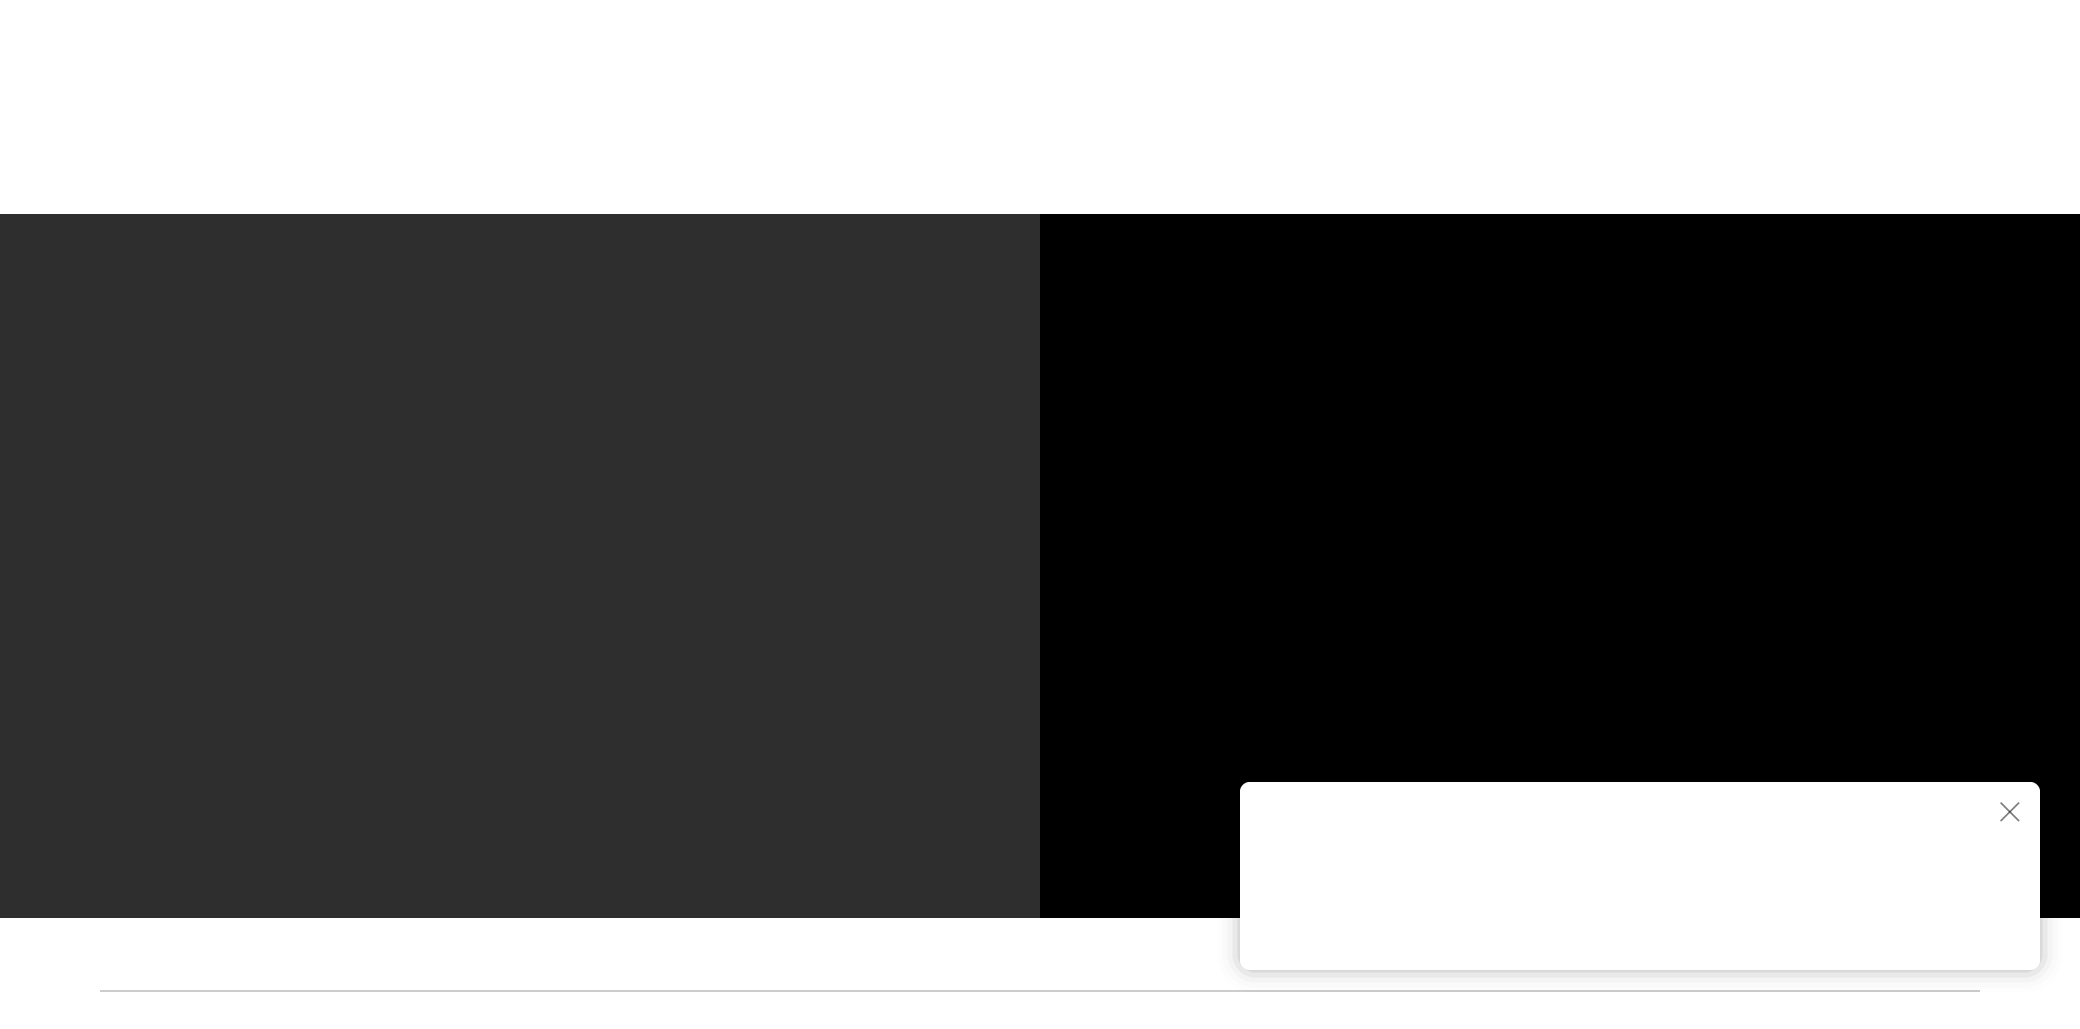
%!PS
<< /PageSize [2080 1029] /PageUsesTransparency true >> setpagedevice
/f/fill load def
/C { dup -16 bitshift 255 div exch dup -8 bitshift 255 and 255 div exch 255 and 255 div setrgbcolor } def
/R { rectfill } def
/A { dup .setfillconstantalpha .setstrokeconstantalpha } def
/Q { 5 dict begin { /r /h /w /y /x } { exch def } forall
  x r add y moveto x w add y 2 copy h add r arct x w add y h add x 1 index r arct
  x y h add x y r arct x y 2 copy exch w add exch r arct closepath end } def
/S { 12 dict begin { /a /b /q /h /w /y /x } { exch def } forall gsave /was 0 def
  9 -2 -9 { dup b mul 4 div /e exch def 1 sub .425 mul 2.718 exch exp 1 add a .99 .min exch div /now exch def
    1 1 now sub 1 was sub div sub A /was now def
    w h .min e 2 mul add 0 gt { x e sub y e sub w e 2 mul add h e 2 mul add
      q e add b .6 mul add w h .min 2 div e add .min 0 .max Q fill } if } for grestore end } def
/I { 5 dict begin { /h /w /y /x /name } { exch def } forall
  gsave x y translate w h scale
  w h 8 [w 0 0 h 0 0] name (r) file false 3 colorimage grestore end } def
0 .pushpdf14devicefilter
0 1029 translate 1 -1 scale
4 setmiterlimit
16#FFFFFF C
0 0 2080 1029 R
16#2E2E2E C
0 214 1040 704 R
16#000000 C
1040 214 1040 704 R
16#CCCCCC C
100 990 1880 2 R
16#000000 C
1240 782 800 188 10 10 .3 S
16#FFFFFF C
1240 782 800 188 10 Q f
(1.rgb) 2000 802 20 20 I
.poppdf14devicefilter showpage
